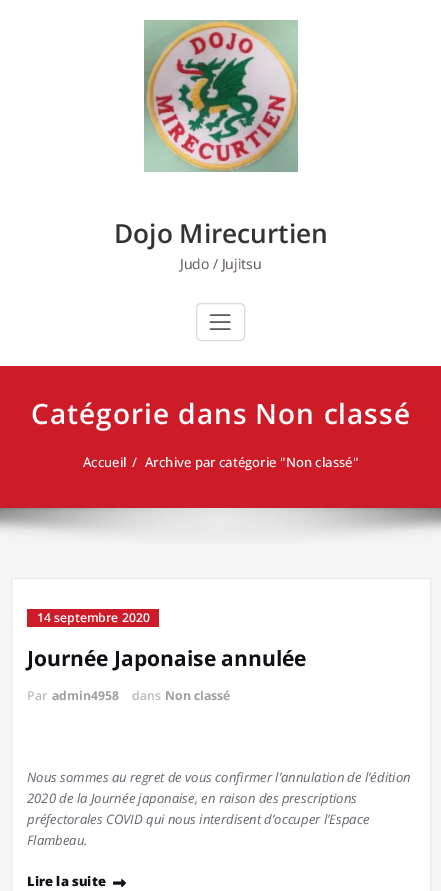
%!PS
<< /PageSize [441 891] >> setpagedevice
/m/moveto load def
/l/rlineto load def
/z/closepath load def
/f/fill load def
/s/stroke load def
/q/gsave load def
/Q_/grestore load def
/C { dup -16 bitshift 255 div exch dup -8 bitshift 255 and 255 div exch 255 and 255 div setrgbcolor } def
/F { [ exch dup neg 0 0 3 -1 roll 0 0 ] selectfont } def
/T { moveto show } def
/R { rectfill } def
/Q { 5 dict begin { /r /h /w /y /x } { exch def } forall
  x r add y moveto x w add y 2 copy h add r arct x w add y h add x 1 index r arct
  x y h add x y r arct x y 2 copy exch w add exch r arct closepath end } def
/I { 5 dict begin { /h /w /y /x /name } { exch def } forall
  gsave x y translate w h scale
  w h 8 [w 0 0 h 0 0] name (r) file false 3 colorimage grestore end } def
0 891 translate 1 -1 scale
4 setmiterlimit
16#F5F5F5 C
0 0 441 891 R
16#FFFFFF C
0 0 441 366 R
(1.rgb) 144 20 154 152 I
/OpenSans-SemiBold 26.25 F
16#333333 C
(Dojo Mirecurtien) 114 243 T
/OpenSans-Regular 14 F
16#5F5555 C
(Judo / Jujitsu) 180 269 T
16#D9D9D9 C
196.5 303.5 48 37 4.5 Q s
(2.rgb) 209 314 22 16 I
16#CE1B28 C
0 366 441 142 R
/OpenSans-SemiBold 28 F
16#FFFFFF C
31 424 m 1 0 (Catégorie dans Non classé) ashow
/OpenSans-Medium 13.1 F
(Accueil) 83 467 T
(/) 132 467 T
(Archive par catégorie "Non classé") 145 467 T
(3.rgb) 0 508 441 36 I
11.5 578.5 m 419 0 l 0 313 l -419 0 l z q f Q_
16#E9E9E9 C
s
16#CE1B28 C
27 609 132 18 R
/OpenSans-SemiBold 12.25 F
16#FFFFFF C
(14 septembre 2020) 37 622 T
/OpenSans-Bold 21 F
16#0F0F16 C
(Journée Japonaise annulée) 27 666 T
/OpenSans-SemiBold 12.25 F
16#B9B9B9 C
(Par) 27 700 T
/OpenSans-Bold 12.25 F
16#9F9F9F C
(admin4958) 52 700 T
/OpenSans-SemiBold 12.25 F
16#B9B9B9 C
(dans) 132 700 T
/OpenSans-Bold 12.25 F
16#9F9F9F C
(Non classé) 165 700 T
/OpenSans-Italic 13.1 F
16#64646D C
(Nous sommes au regret de vous confirmer l’annulation de l’édition) 27 782 T
(2020 de la Journée japonaise, en raison des prescriptions) 27 803 T
q
27 726 388 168 rectclip
(préfectorales COVID qui nous interdisent d’occuper l’Espace) 27 824 T
Q_
(Flambeau.) 27 845 T
/OpenSans-ExtraBold 13 F
16#0F0F16 C
(Lire la suite) 27 886 T
(4.rgb) 113 879 14 9 I
showpage
